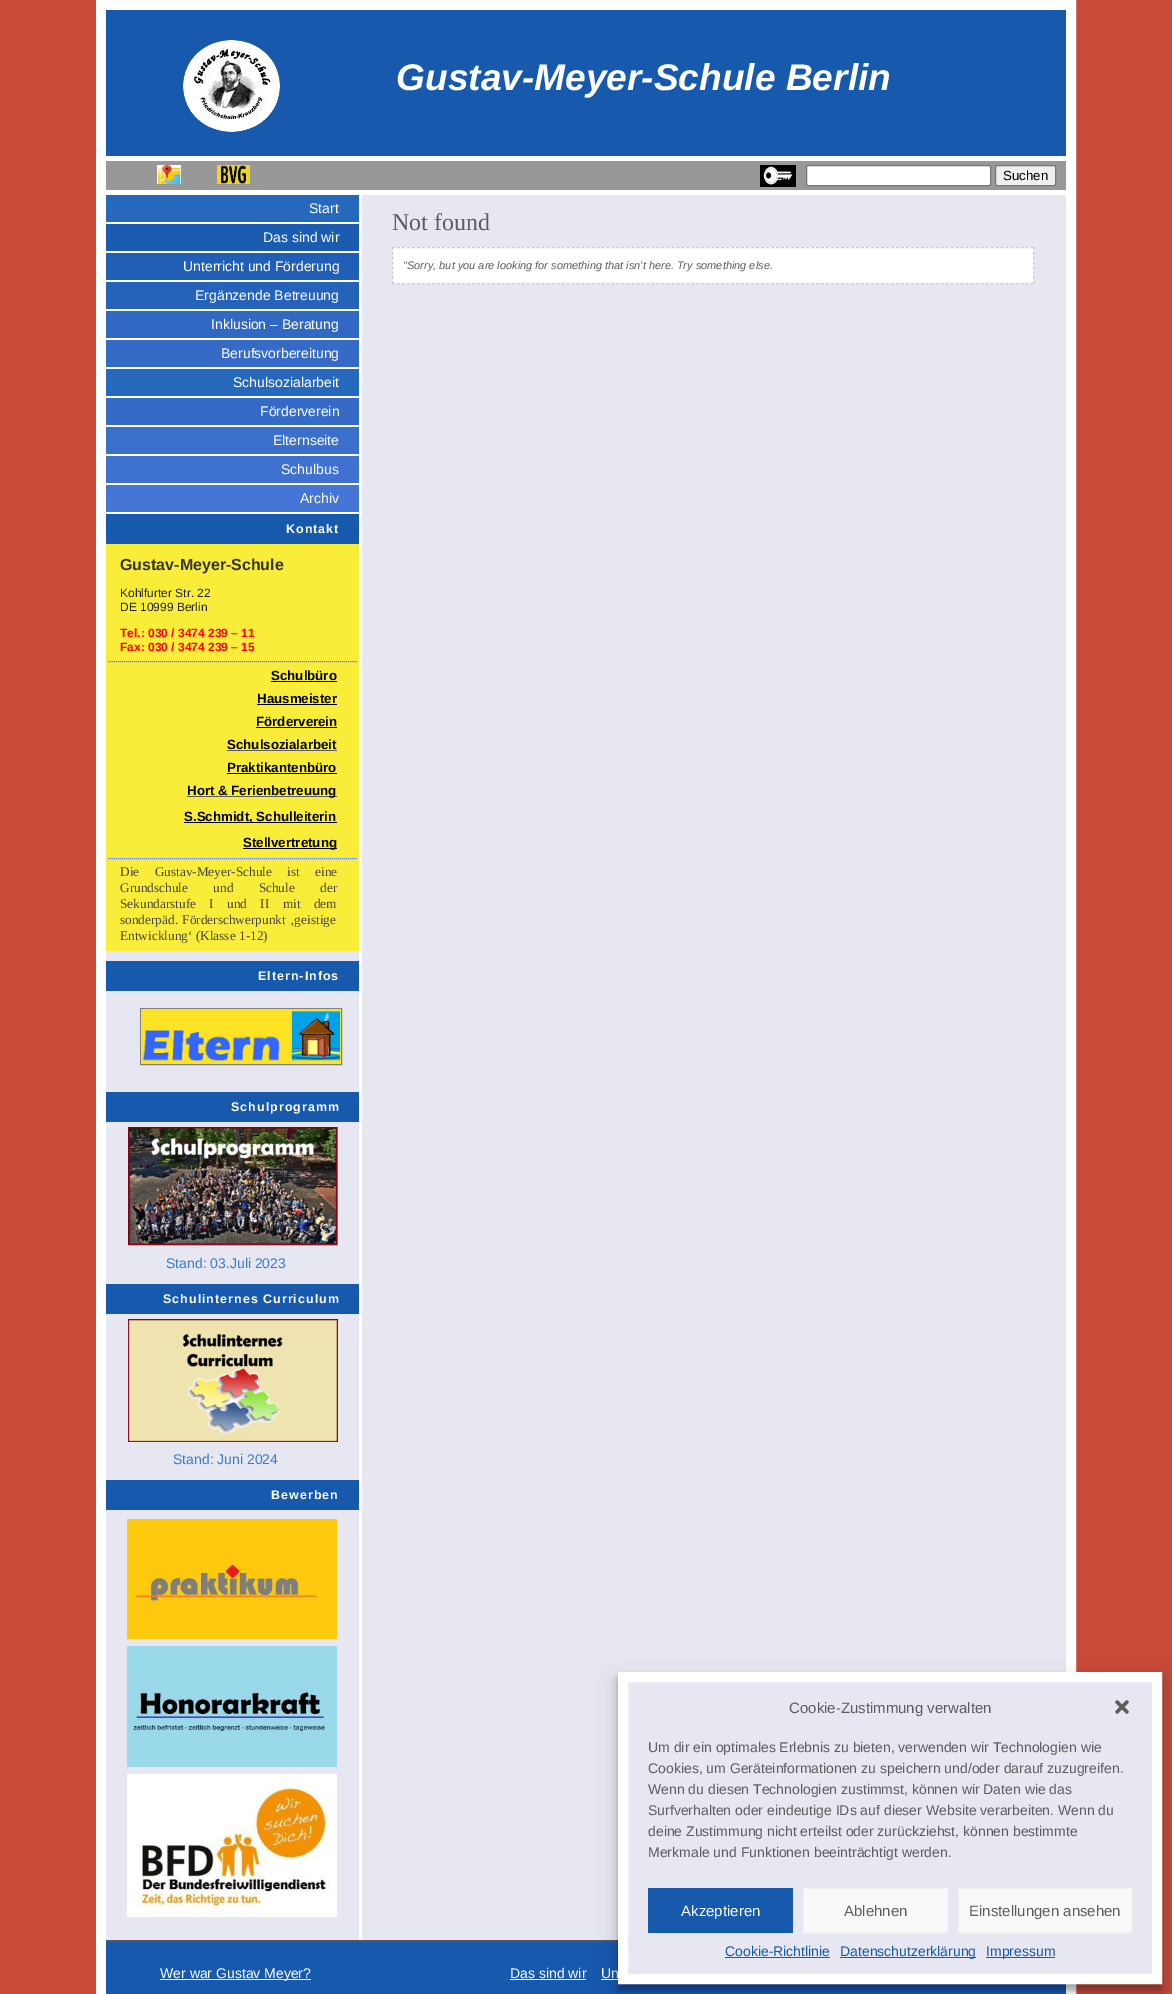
%!PS
<< /PageSize [1172 1994] /PageUsesTransparency true >> setpagedevice
/m/moveto load def
/l/rlineto load def
/z/closepath load def
/f/fill load def
/s/stroke load def
/q/gsave load def
/Q_/grestore load def
/w/setlinewidth load def
/C { dup -16 bitshift 255 div exch dup -8 bitshift 255 and 255 div exch 255 and 255 div setrgbcolor } def
/F { [ exch dup neg 0 0 3 -1 roll 0 0 ] selectfont } def
/T { moveto show } def
/R { rectfill } def
/A { dup .setfillconstantalpha .setstrokeconstantalpha } def
/Q { 5 dict begin { /r /h /w /y /x } { exch def } forall
  x r add y moveto x w add y 2 copy h add r arct x w add y h add x 1 index r arct
  x y h add x y r arct x y 2 copy exch w add exch r arct closepath end } def
/S { 12 dict begin { /a /b /q /h /w /y /x } { exch def } forall gsave /was 0 def
  9 -2 -9 { dup b mul 4 div /e exch def 1 sub .425 mul 2.718 exch exp 1 add a .99 .min exch div /now exch def
    1 1 now sub 1 was sub div sub A /was now def
    w h .min e 2 mul add 0 gt { x e sub y e sub w e 2 mul add h e 2 mul add
      q e add b .6 mul add w h .min 2 div e add .min 0 .max Q fill } if } for grestore end } def
/I { 5 dict begin { /h /w /y /x /name } { exch def } forall
  gsave x y translate w h scale
  w h 8 [w 0 0 h 0 0] name (r) file false 3 colorimage grestore end } def
0 .pushpdf14devicefilter
0 1994 translate 1 -1 scale
4 setmiterlimit
16#C84A37 C
0 0 1172 1994 R
16#E7E7F2 C
106 195 960 1745 R
16#FFFFFF C
10 w
101 5 970 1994 rectstroke
16#1659AD C
106 10 960 146 R
(1.rgb) 183 40 97 92 I
/LiberationSans-BoldItalic 37.1 F
16#FFFFFF C
(Gustav-Meyer-Schule Berlin) 396 90 T
16#989898 C
106 161 960 29 R
16#FFFFFF C
106 156 960 5 R
106 190 960 5 R
(2.rgb) 157 165 24 19 I
(3.rgb) 217 165 33 19 I
(4.rgb) 760 165 36 22 I
806.5 165.5 184 20 1.5 Q q f Q_
16#767676 C
1 w
s
16#EFEFEF C
995.5 165.5 60 20 1.5 Q q f Q_
16#767676 C
s
/LiberationSans-Regular 13.3 F
16#000000 C
(Suchen) 1003 180 T
16#FFFFFF C
359 195 3 1745 R
16#2568BC C
106 195 253 27 R
16#FFFFFF C
106 222 253 2 R
/LiberationSans-Regular 14 F
(Start) 309 213 T
16#1B5CB1 C
106 224 253 27 R
16#FFFFFF C
106 251 253 2 R
(Das sind wir) 263 242 T
16#205FB5 C
106 253 253 27 R
16#FFFFFF C
106 280 253 2 R
(Unterricht und Förderung) 183 271 T
16#2562BA C
106 282 253 27 R
16#FFFFFF C
106 309 253 2 R
(Ergänzende Betreuung) 195 300 T
16#3068C3 C
106 311 253 27 R
16#FFFFFF C
106 338 253 2 R
(Inklusion – Beratung) 211 329 T
16#356BC7 C
106 340 253 27 R
16#FFFFFF C
106 367 253 2 R
(Berufsvorbereitung) 221 358 T
16#2568BC C
106 369 253 27 R
16#FFFFFF C
106 396 253 2 R
(Schulsozialarbeit) 233 387 T
16#356BC7 C
106 398 253 27 R
16#FFFFFF C
106 425 253 2 R
(Förderverein) 260 416 T
16#3A6FCC C
106 427 253 27 R
16#FFFFFF C
106 454 253 2 R
(Elternseite) 273 445 T
16#3F72D0 C
106 456 253 27 R
16#FFFFFF C
106 483 253 2 R
(Schulbus) 281 474 T
16#4575D5 C
106 485 253 27 R
16#FFFFFF C
106 512 253 2 R
(Archiv) 300 503 T
16#1659AD C
106 514 253 30 R
/LiberationSans-Bold 12.5 F
16#FFFFFF C
286 533 m 1 0 (Kontakt) ashow
16#F9ED39 C
106 544 253 407 R
/LiberationSans-Bold 16 F
16#343434 C
(Gustav-Meyer-Schule) 120 570 T
/LiberationSans-Regular 12 F
16#232323 C
(Kohlfurter Str. 22) 120 597 T
(DE 10999 Berlin) 120 611 T
/LiberationSans-Bold 12 F
16#FF0000 C
(Tel.: 030 / 3474 239 – 11) 120 637 T
(Fax: 030 / 3474 239 – 15) 120 651 T
16#567DFE C
[1 1] 0 setdash
108 661.5 m 249 0 l s
/LiberationSans-Bold 13.3 F
16#000000 C
(Schulbüro) 271 680 T
271 681 66 1 R
(Hausmeister) 257 703 T
257 704 80 1 R
(Förderverein) 256 726 T
256 727 81 1 R
(Schulsozialarbeit) 227 749 T
16#5C5C5C C
227 750 110 1 R
16#000000 C
(Praktikantenbüro) 227 772 T
227 773 110 1 R
16#5C5C5C C
187 796 150 1 R
16#000000 C
(Hort & Ferienbetreuung) 187 795 T
184 822 153 1 R
(S.Schmidt, Schulleiterin) 184 821 T
243 848 94 1 R
(Stellvertretung) 243 847 T
16#567DFE C
108 858.5 m 249 0 l s
/LiberationSerif-Regular 13.3 F
16#454545 C
120 876 m 12 0 32 (Die Gustav-Meyer-Schule ist eine) widthshow
120 892 m 22 0 32 (Grundschule und Schule der) widthshow
120 908 m 10 0 32 (Sekundarstufe I und II mit dem) widthshow
120 924 m 1 0 32 (sonderpäd. Förderschwerpunkt ‚geistige) widthshow
(Entwicklung‘ \(Klasse 1-12\)) 120 940 T
16#1659AD C
106 961 253 30 R
/LiberationSans-Bold 12.5 F
16#FFFFFF C
258 980 m 1 0 (Eltern-Infos) ashow
16#808080 C
[] 0 setdash
140.5 1008.5 201 56 rectstroke
(5.rgb) 141 1009 200 55 I
16#1659AD C
106 1092 253 30 R
16#FFFFFF C
231 1111 m 1 0 (Schulprogramm) ashow
(6.rgb) 128 1127 210 119 I
/LiberationSans-Regular 14 F
16#397ACA C
(Stand: 03.Juli 2023) 166 1268 T
16#1659AD C
106 1284 253 30 R
/LiberationSans-Bold 12.5 F
16#FFFFFF C
163 1303 m 1 0 (Schulinternes Curriculum) ashow
(7.rgb) 128 1319 210 123 I
/LiberationSans-Regular 14 F
16#397ACA C
(Stand: Juni 2024) 173 1464 T
16#1659AD C
106 1480 253 30 R
/LiberationSans-Bold 12.5 F
16#FFFFFF C
271 1499 m 1 0 (Bewerben) ashow
(8.rgb) 127 1519 210 120 I
(9.rgb) 127 1646 210 121 I
(10.rgb) 127 1774 210 143 I
/LiberationSerif-Regular 24 F
16#5C5C5C C
(Not found) 392 230 T
16#FFFFFF C
392 247 642 37 R
16#CCCCCC C
[3 1.99] 0 setdash
392 247.5 m 642 0 l s
[3 1.86] 0 setdash
1033.5 247 m 0 37 l s
[3 1.99] 0 setdash
392 283.5 m 642 0 l s
[3 1.86] 0 setdash
392.5 247 m 0 37 l s
/LiberationSans-Italic 11 F
16#5C5C5C C
("Sorry, but you are looking for something that isn't here. Try something else.) 403 269 T
16#1659AD C
106 1942 960 52 R
16#565656 C
106 1940 512 2 R
16#FFFFFF C
160 1979 151 1 R
/LiberationSans-Regular 14 F
(Wer war Gustav Meyer?) 160 1978 T
(Das sind wir) 510 1978 T
510 1979 76 1 R
(Un) 601 1978 T
601 1979 17 1 R
16#000000 C
618 1678 544 312 0 3 .23 S
618 1682 544 312 0 10 .19 S
16#E7E7F2 C
623 1677 m 534 0 l 0 302 l -534 0 l z q f Q_
16#FFFFFF C
10 w
[] 0 setdash
s
/LiberationSans-Regular 15 F
16#5C5C5C C
(Cookie-Zustimmung verwalten) 789 1713 T
(11.rgb) 1115 1700 14 14 I
/LiberationSans-Regular 14 F
(Um dir ein optimales Erlebnis zu bieten, verwenden wir Technologien wie) 648 1752 T
(Cookies, um Geräteinformationen zu speichern und/oder darauf zuzugreifen.) 648 1773 T
(Wenn du diesen Technologien zustimmst, können wir Daten wie das) 648 1794 T
(Surfverhalten oder eindeutige IDs auf dieser Website verarbeiten. Wenn du) 648 1815 T
(deine Zustimmung nicht erteilst oder zurückziehst, können bestimmte) 648 1836 T
(Merkmale und Funktionen beeinträchtigt werden.) 648 1857 T
16#1659AD C
648 1888 145 45 R
/LiberationSans-Regular 15 F
16#FFFFFF C
(Akzeptieren) 681 1916 T
16#F9F9F9 C
803.5 1888.5 m 144 0 l 0 44 l -144 0 l z q f Q_
16#F2F2F2 C
1 w
s
16#5C5C5C C
(Ablehnen) 844 1916 T
16#F9F9F9 C
958.5 1888.5 m 173 0 l 0 44 l -173 0 l z q f Q_
16#F2F2F2 C
s
16#5C5C5C C
(Einstellungen ansehen) 969 1916 T
/LiberationSans-Regular 14 F
16#1659AD C
(Cookie-Richtlinie) 725 1956 T
725 1957 105 1 R
840 1957 136 1 R
(Datenschutzerklärung) 840 1956 T
986 1957 69 1 R
(Impressum) 986 1956 T
.poppdf14devicefilter showpage
